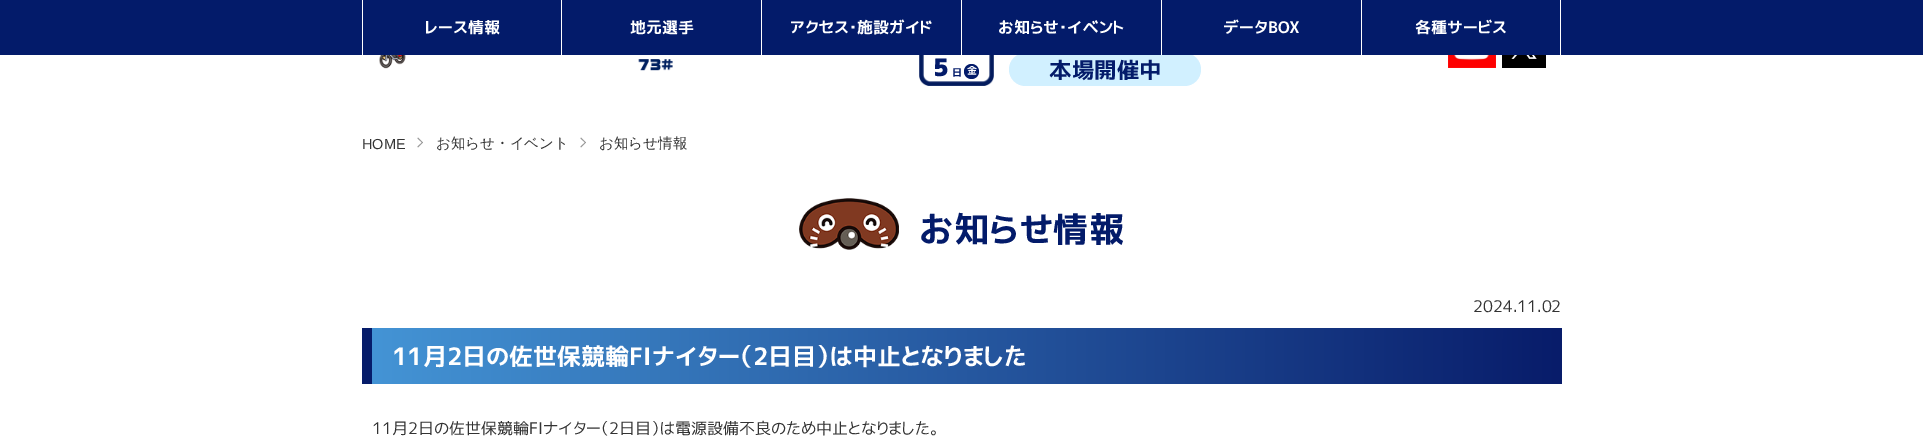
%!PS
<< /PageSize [1923 448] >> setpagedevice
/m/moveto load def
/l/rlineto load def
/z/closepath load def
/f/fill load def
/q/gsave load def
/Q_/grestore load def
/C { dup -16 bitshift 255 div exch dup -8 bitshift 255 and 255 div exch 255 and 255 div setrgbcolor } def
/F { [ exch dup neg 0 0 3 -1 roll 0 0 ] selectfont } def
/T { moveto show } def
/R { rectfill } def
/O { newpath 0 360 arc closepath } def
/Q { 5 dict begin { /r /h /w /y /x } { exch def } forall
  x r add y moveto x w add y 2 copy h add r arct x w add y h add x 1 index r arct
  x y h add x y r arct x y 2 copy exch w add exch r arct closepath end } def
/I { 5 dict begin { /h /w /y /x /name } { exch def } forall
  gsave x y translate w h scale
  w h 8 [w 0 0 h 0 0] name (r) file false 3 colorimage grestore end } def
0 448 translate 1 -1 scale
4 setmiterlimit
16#FFFFFF C
0 0 1923 448 R
16#D1F0FF C
1009 53 192 33 16.5 Q f
16#031B6A C
0 0 1923 55 R
16#FFFFFF C
561 0 1 55 R
362 0 1 55 R
/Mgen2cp-Bold 16 F
(レース情報) 425 33 T
761 0 1 55 R
(地元選手) 630 33 T
961 0 1 55 R
(アクセス・施設ガイド) 790 33 T
1161 0 1 55 R
(お知らせ・イベント) 998 33 T
1361 0 1 55 R
(データBOX) 1223 33 T
1560 0 1 55 R
(各種サービス) 1415 33 T
(1.rgb) 379 55 294 16 I
(2.rgb) 919 55 75 31 I
/Mgen2cp-Black 24 F
16#031B6A C
(5) 933 76 T
/Mgen2cp-Bold 10 F
(日) 952 76 T
971.5 71.5 7.5 O f
16#FFFFFF C
(金) 967 74 T
/Mgen2cp-Bold 22.5 F
16#031B6A C
(本場開催中) 1049 78 T
(3.rgb) 1448 55 48 13 I
(4.rgb) 1502 55 44 13 I
/LiberationSans-Regular 14.5 F
16#333333 C
(HOME) 362 149 T
16#999999 C
418 137.5 m 5 5 l -.5 .5 l -5 -4.5 l z f
422.5 142 m .5 .5 l -5 5 l -.5 -1 l z f
/WenQuanYiZenHei-Medium 14.5 F
16#333333 C
(お知らせ・イベント) 436 148 T
16#999999 C
581 137.5 m 5 5 l -.5 .5 l -5 -4.5 l z f
585.5 142 m .5 .5 l -5 5 l -.5 -1 l z f
16#333333 C
(お知らせ情報) 599 148 T
(5.rgb) 799 198 100 52 I
/Mgen2cp-Bold 35.25 F
16#031B6A C
(お知らせ情報) 919 242 T
/Mgen2cp-Regular 16 F
16#333333 C
(2024.11.02) 1473 312 T
q 372 328 m 1190 0 l 0 56 l -1190 0 l z clip newpath
<< /ShadingType 2 /ColorSpace /DeviceRGB /Coords [372 356 1562 356] /Extend [true true] /Function << /FunctionType 2 /Domain [0 1] /C0 [.267 .58 .835] /C1 [.031 .11 .416] /N 1 >> >> shfill Q_
16#061C6A C
362 328 10 56 R
/Mgen2cp-Bold 24 F
16#FFFFFF C
(11月2日の佐世保競輪FIナイター（2日目）は中止となりました) 392 365 T
/Mgen2cp-Regular 16 F
16#333333 C
(11月2日の佐世保競輪FIナイター（2日目）は電源設備不良のため中止となりました。) 372 434 T
showpage
